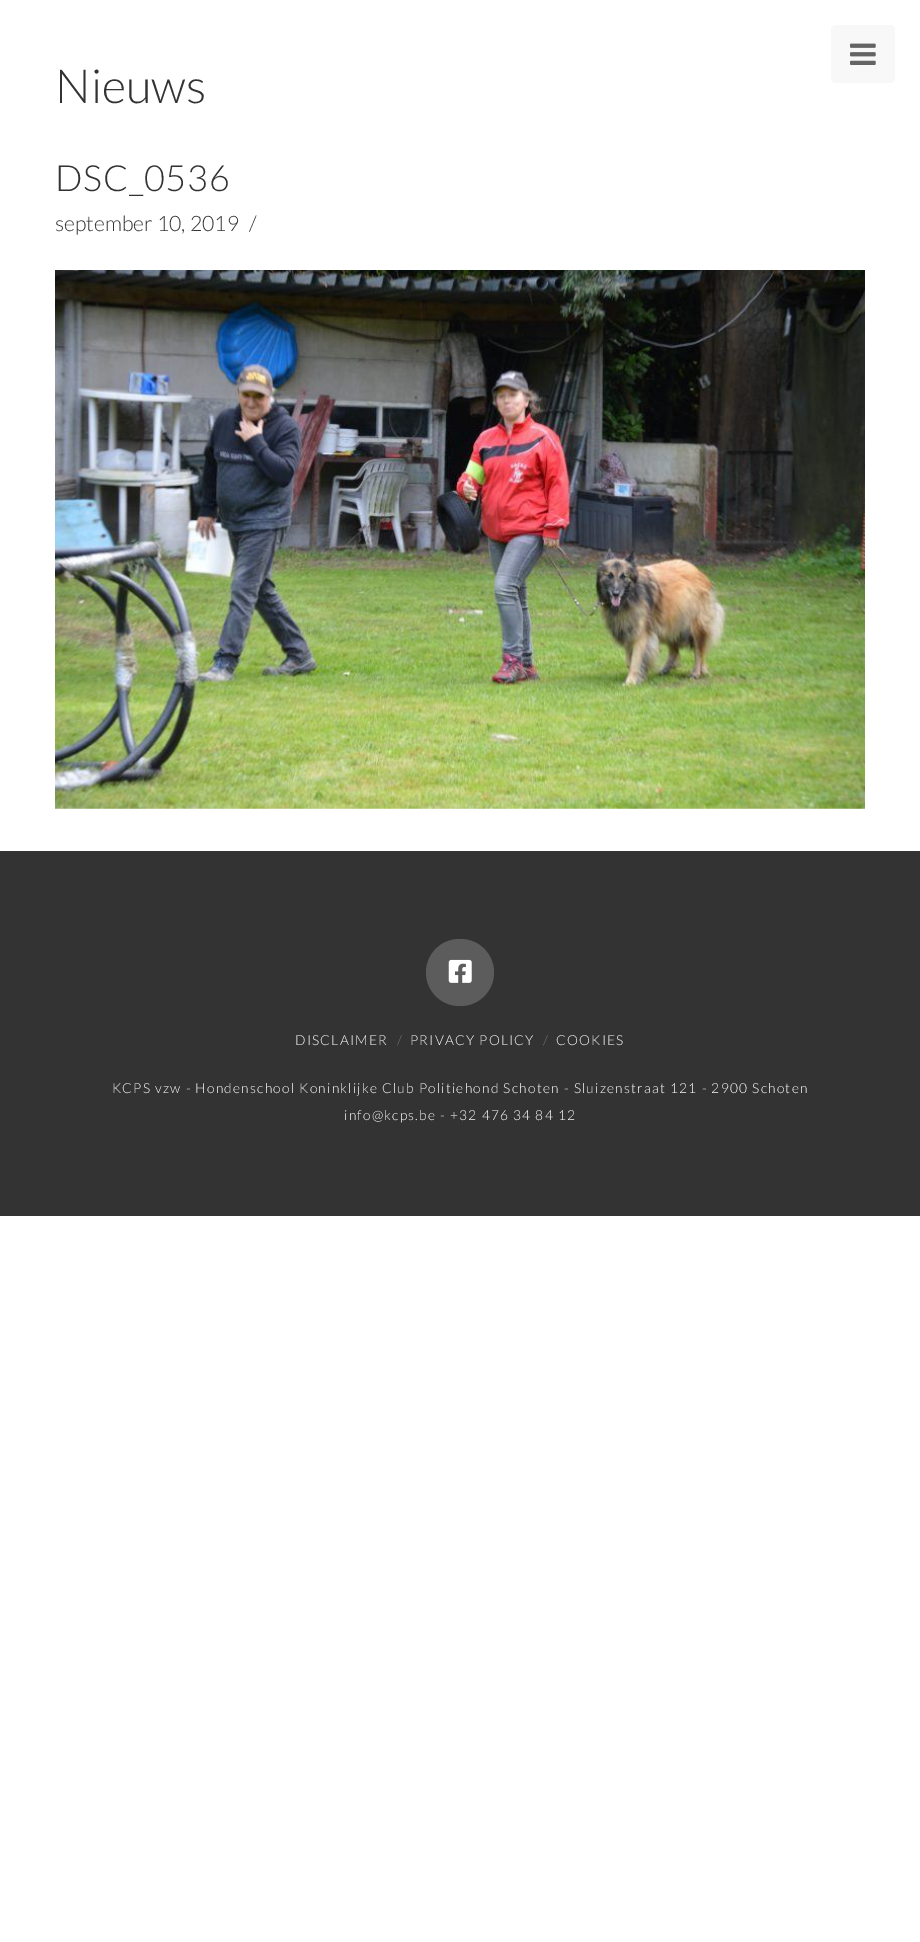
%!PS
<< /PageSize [920 1942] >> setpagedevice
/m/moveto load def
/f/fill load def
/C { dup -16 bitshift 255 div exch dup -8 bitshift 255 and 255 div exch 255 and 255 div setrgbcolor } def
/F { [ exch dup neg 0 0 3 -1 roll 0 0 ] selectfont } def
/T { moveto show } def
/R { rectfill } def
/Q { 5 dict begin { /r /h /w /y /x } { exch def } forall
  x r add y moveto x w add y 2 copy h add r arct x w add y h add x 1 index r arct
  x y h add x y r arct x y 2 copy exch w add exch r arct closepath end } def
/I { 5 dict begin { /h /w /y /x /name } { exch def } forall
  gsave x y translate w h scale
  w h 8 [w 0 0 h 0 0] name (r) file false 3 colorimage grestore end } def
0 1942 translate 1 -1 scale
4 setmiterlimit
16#FFFFFF C
0 0 920 1942 R
16#F8F8F8 C
831 25 64 58 5 Q f
(1.rgb) 850 43 26 22 I
/Lato-Light 47 F
16#333333 C
(Nieuws) 55 103 T
/Lato-Light 36 F
55 191 m .75 0 (DSC_0536) ashow
/Lato-Light 21.25 F
(september 10, 2019) 55 231 T
(/) 249 231 T
(2.rgb) 55 270 810 539 I
0 851 920 365 R
16#5C5C5C C
426 939 68 67 33.5 Q f
(3.rgb) 448 959 24 24 I
/Lato-Light 13.75 F
16#FFFFFF C
295 1045 m 1.25 0 (DISCLAIMER) ashow
16#7A7A7A C
(/) 397 1045 T
16#FFFFFF C
410 1045 m 1.25 0 (PRIVACY POLICY) ashow
16#7A7A7A C
(/) 543 1045 T
16#FFFFFF C
556 1045 m 1.25 0 (COOKIES) ashow
112 1093 m 1.25 0 (KCPS vzw - Hondenschool Koninklijke Club Politiehond Schoten - Sluizenstraat 121 - 2900 Schoten) ashow
344 1120 m 1.25 0 (info@kcps.be - +32 476 34 84 12) ashow
showpage
